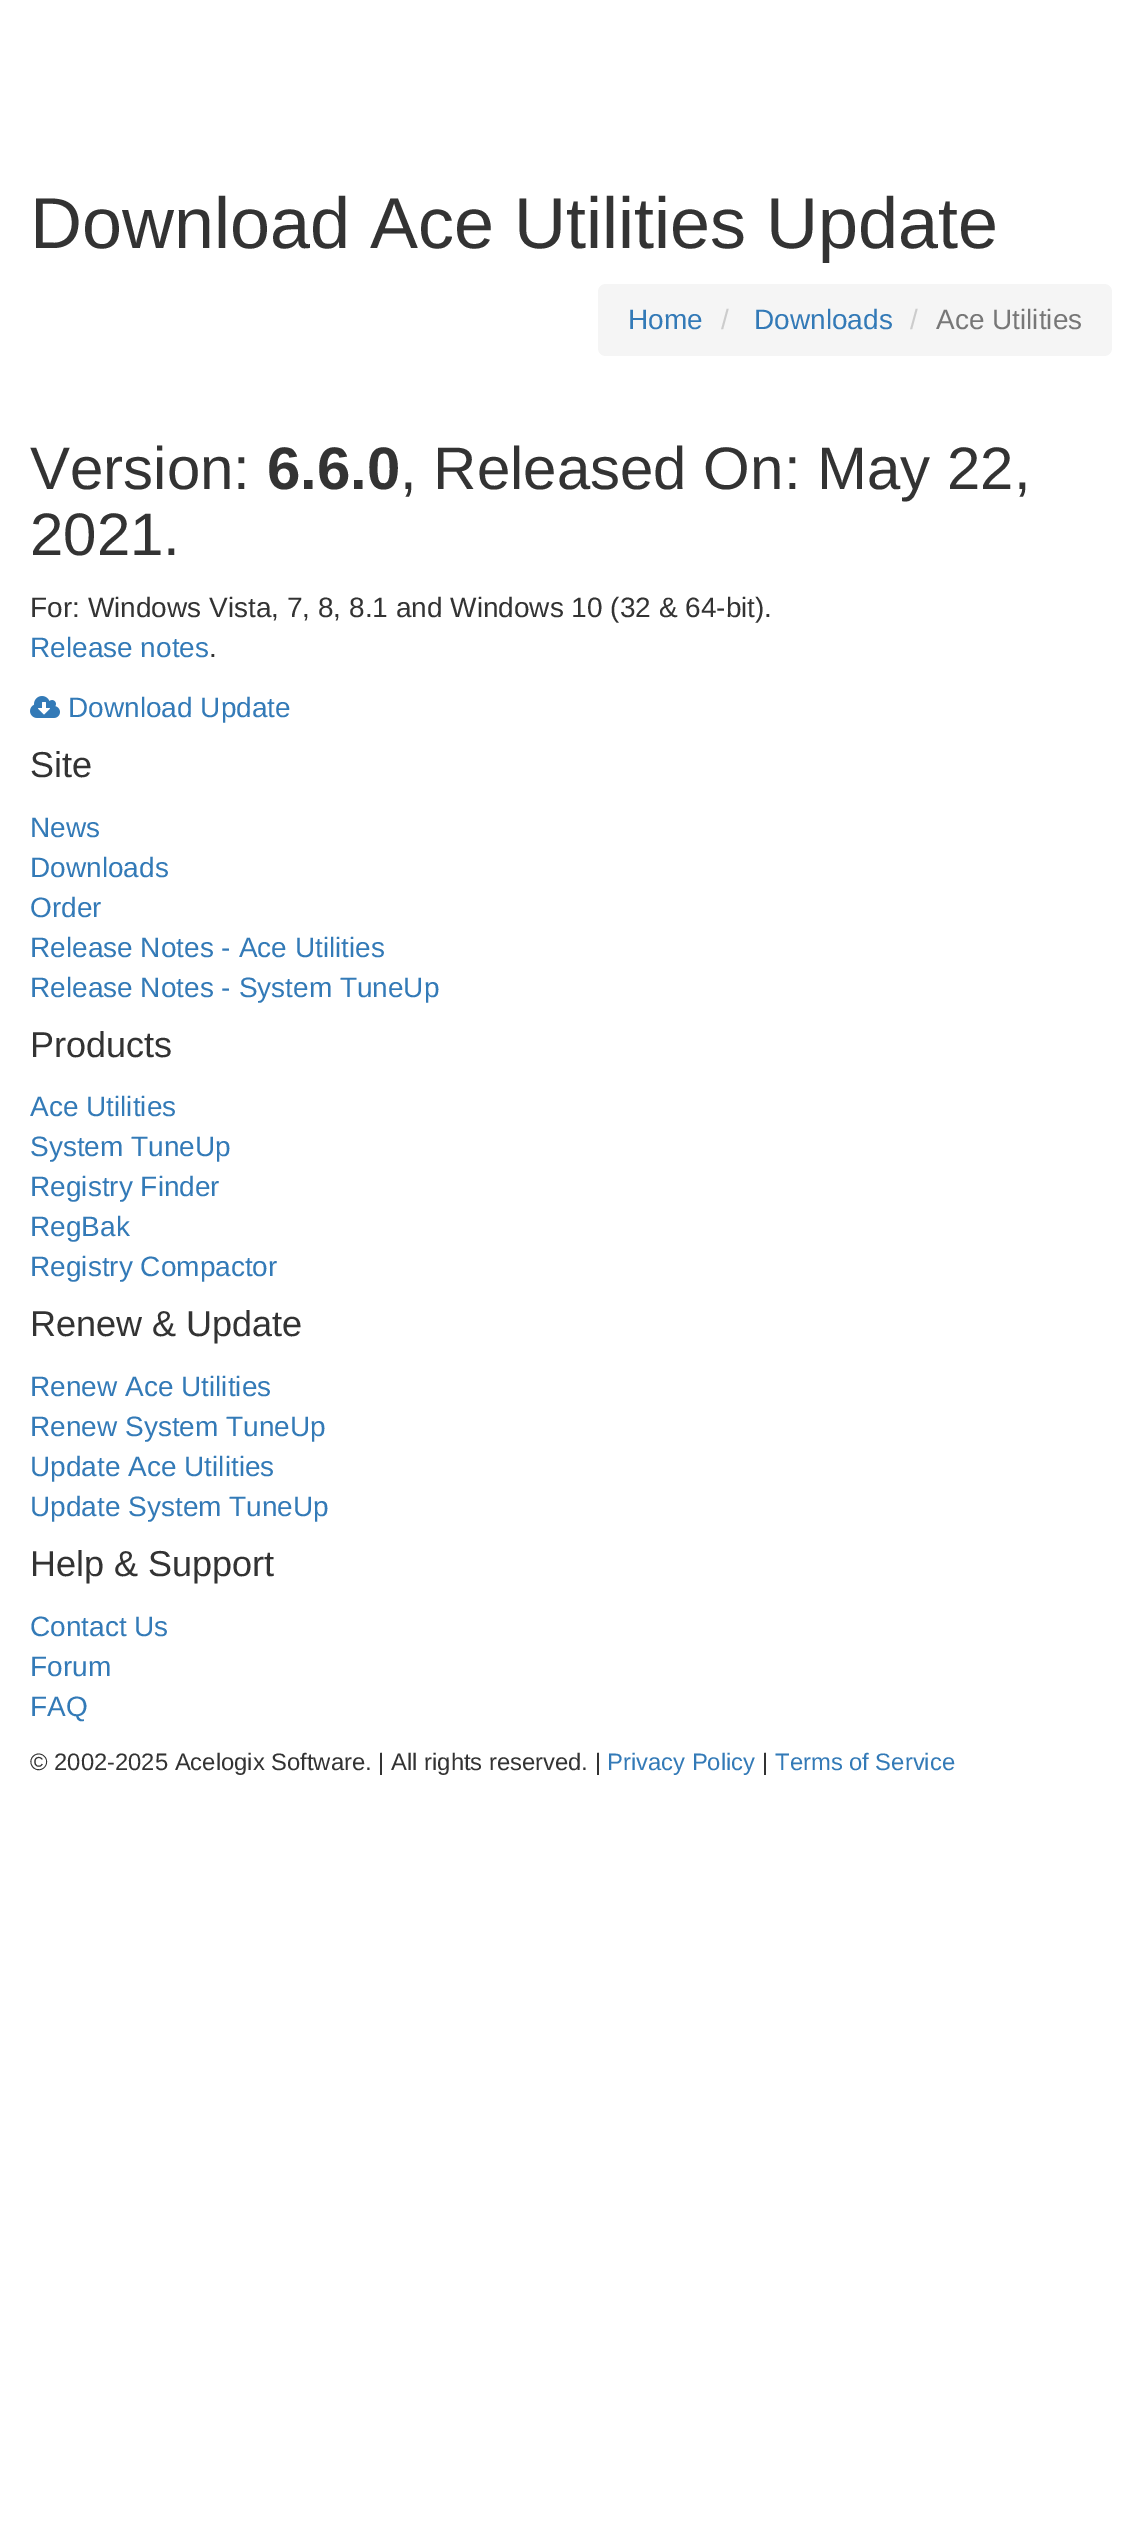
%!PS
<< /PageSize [1142 2545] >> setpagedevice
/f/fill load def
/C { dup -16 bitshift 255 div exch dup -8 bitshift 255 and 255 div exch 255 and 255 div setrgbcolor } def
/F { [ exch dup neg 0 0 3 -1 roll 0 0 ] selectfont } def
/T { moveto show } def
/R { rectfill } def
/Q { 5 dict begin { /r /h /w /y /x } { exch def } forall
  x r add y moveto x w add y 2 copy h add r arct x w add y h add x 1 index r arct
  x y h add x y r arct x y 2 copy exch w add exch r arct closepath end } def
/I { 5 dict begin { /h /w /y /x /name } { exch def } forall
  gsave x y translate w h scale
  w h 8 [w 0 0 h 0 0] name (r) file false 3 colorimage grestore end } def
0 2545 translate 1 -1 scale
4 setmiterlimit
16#FFFFFF C
0 0 1142 2545 R
/LiberationSans-Regular 72 F
16#333333 C
(Download Ace Utilities Update) 30 248 T
16#F5F5F5 C
598 284 514 72 8 Q f
/LiberationSans-Regular 28 F
16#337AB7 C
(Home) 628 329 T
16#CCCCCC C
(/) 721 329 T
16#337AB7 C
(Downloads) 754 329 T
16#CCCCCC C
(/) 910 329 T
16#777777 C
(Ace Utilities) 936 329 T
/LiberationSans-Regular 60 F
16#333333 C
(Version:) 30 489 T
/LiberationSans-Bold 60 F
(6.6.0) 267 489 T
/LiberationSans-Regular 60 F
(, Released On: May 22,) 400 489 T
(2021.) 30 555 T
/LiberationSans-Regular 28 F
(For: Windows Vista, 7, 8, 8.1 and Windows 10 \(32 & 64-bit\).) 30 617 T
16#337AB7 C
(Release notes) 30 657 T
16#333333 C
(.) 209 657 T
(1.rgb) 30 696 30 22 I
16#337AB7 C
(Download Update) 68 717 T
/LiberationSans-Regular 36 F
16#333333 C
(Site) 30 777 T
/LiberationSans-Regular 28 F
16#337AB7 C
(News) 30 837 T
(Downloads) 30 877 T
(Order) 30 917 T
(Release Notes - Ace Utilities) 30 957 T
(Release Notes - System TuneUp) 30 997 T
/LiberationSans-Regular 36 F
16#333333 C
(Products) 30 1057 T
/LiberationSans-Regular 28 F
16#337AB7 C
(Ace Utilities) 30 1116 T
(System TuneUp) 30 1156 T
(Registry Finder) 30 1196 T
(RegBak) 30 1236 T
(Registry Compactor) 30 1276 T
/LiberationSans-Regular 36 F
16#333333 C
(Renew & Update) 30 1336 T
/LiberationSans-Regular 28 F
16#337AB7 C
(Renew Ace Utilities) 30 1396 T
(Renew System TuneUp) 30 1436 T
(Update Ace Utilities) 30 1476 T
(Update System TuneUp) 30 1516 T
/LiberationSans-Regular 36 F
16#333333 C
(Help & Support) 30 1576 T
/LiberationSans-Regular 28 F
16#337AB7 C
(Contact Us) 30 1636 T
(Forum) 30 1676 T
(FAQ) 30 1716 T
/LiberationSans-Regular 23.8 F
16#333333 C
(© 2002-2025 Acelogix Software. | All rights reserved. |) 30 1770 T
16#337AB7 C
(Privacy Policy) 607 1770 T
16#333333 C
(|) 762 1770 T
16#337AB7 C
(Terms of Service) 775 1770 T
showpage
